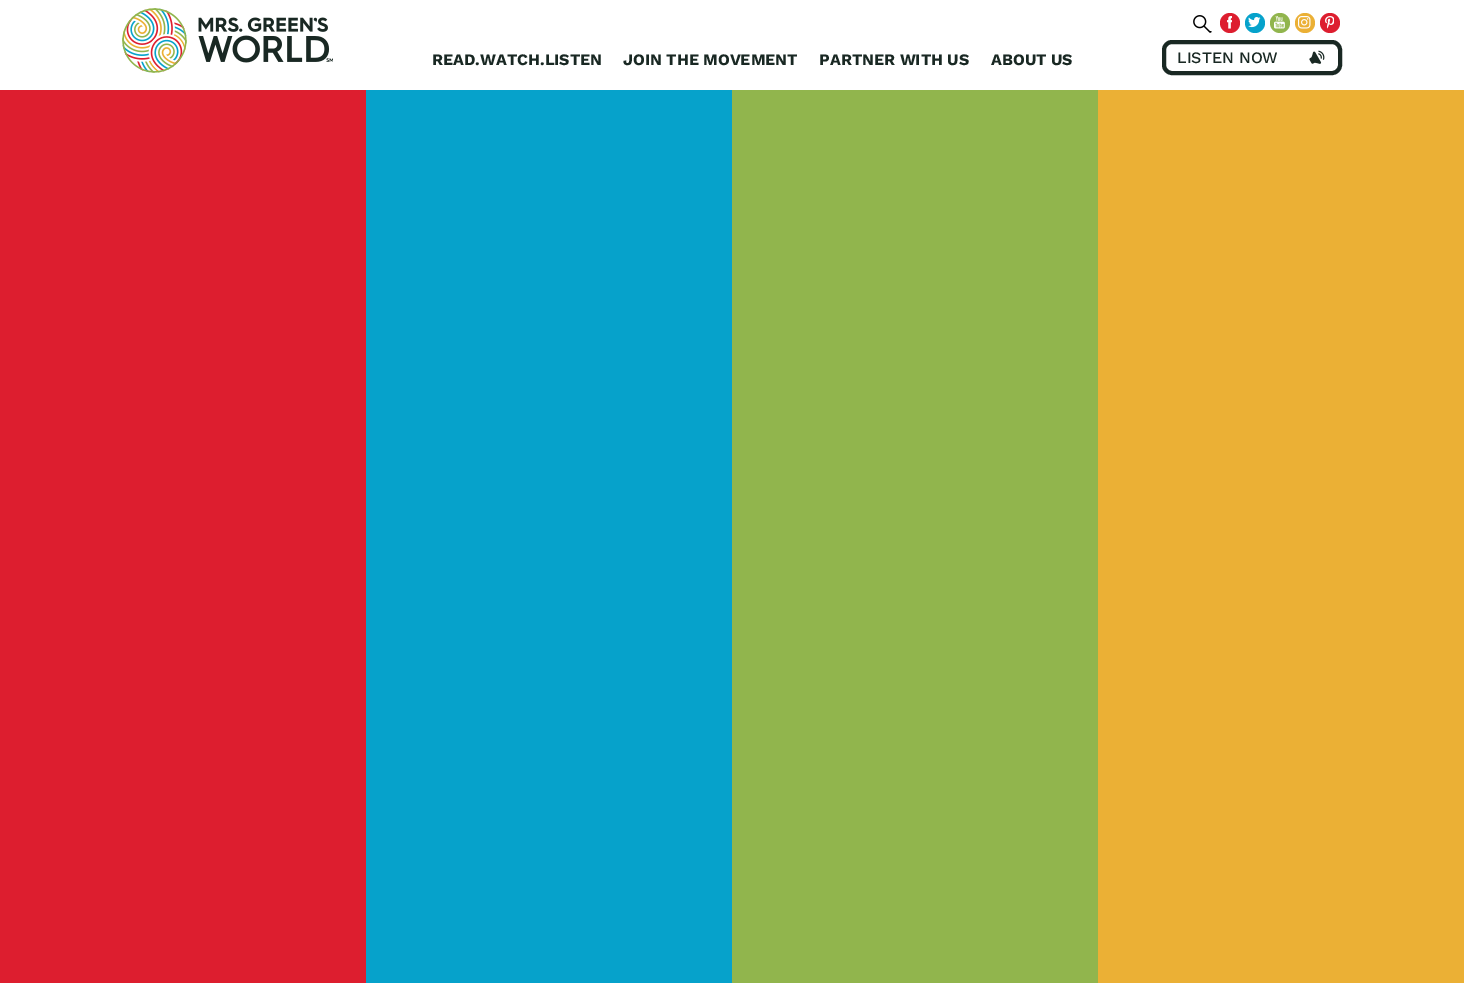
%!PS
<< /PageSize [1464 983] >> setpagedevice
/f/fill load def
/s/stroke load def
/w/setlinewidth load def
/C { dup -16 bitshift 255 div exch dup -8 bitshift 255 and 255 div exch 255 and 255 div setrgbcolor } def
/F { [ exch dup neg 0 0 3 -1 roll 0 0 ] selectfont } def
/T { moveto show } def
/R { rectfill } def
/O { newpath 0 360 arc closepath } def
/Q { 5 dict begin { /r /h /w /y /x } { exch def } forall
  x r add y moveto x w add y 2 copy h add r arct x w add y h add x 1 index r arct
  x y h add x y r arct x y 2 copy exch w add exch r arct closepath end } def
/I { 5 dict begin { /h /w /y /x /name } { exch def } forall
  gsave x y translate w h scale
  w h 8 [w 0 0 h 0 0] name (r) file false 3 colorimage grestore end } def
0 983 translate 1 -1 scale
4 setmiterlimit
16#FFFFFF C
0 0 1464 983 R
(1.rgb) 198 17 135 46 I
(2.rgb) 122 8 65 65 I
(4.rgb) 1208 31 4 2 I
(3.rgb) 1193 15 18 18 I
16#DD1E2F C
1230 23 10 O f
(5.rgb) 1227 16 5 13 I
16#06A2CB C
1255 23 10 O f
(6.rgb) 1248 17 13 11 I
16#91B54D C
1280 23 10 O f
(7.rgb) 1274 16 11 13 I
16#EBB035 C
1305 23 10 O f
(8.rgb) 1298 16 13 13 I
16#DD1E2F C
1330 23 10 O f
(9.rgb) 1325 16 9 13 I
/WorkSans-Bold 16 F
16#192823 C
(READ.WATCH.LISTEN) 432 65 T
(JOIN THE MOVEMENT) 623 65 T
(PARTNER WITH US) 819 65 T
(ABOUT US) 991 65 T
4 w
1164 42 176 31 8 Q s
/WorkSans-Medium 16 F
(LISTEN NOW) 1177 63 T
(10.rgb) 1309 50 16 14 I
16#DD1E2F C
0 90 366 893 R
16#06A2CB C
366 90 366 893 R
16#91B54D C
732 90 366 893 R
16#EBB035 C
1098 90 366 893 R
showpage
